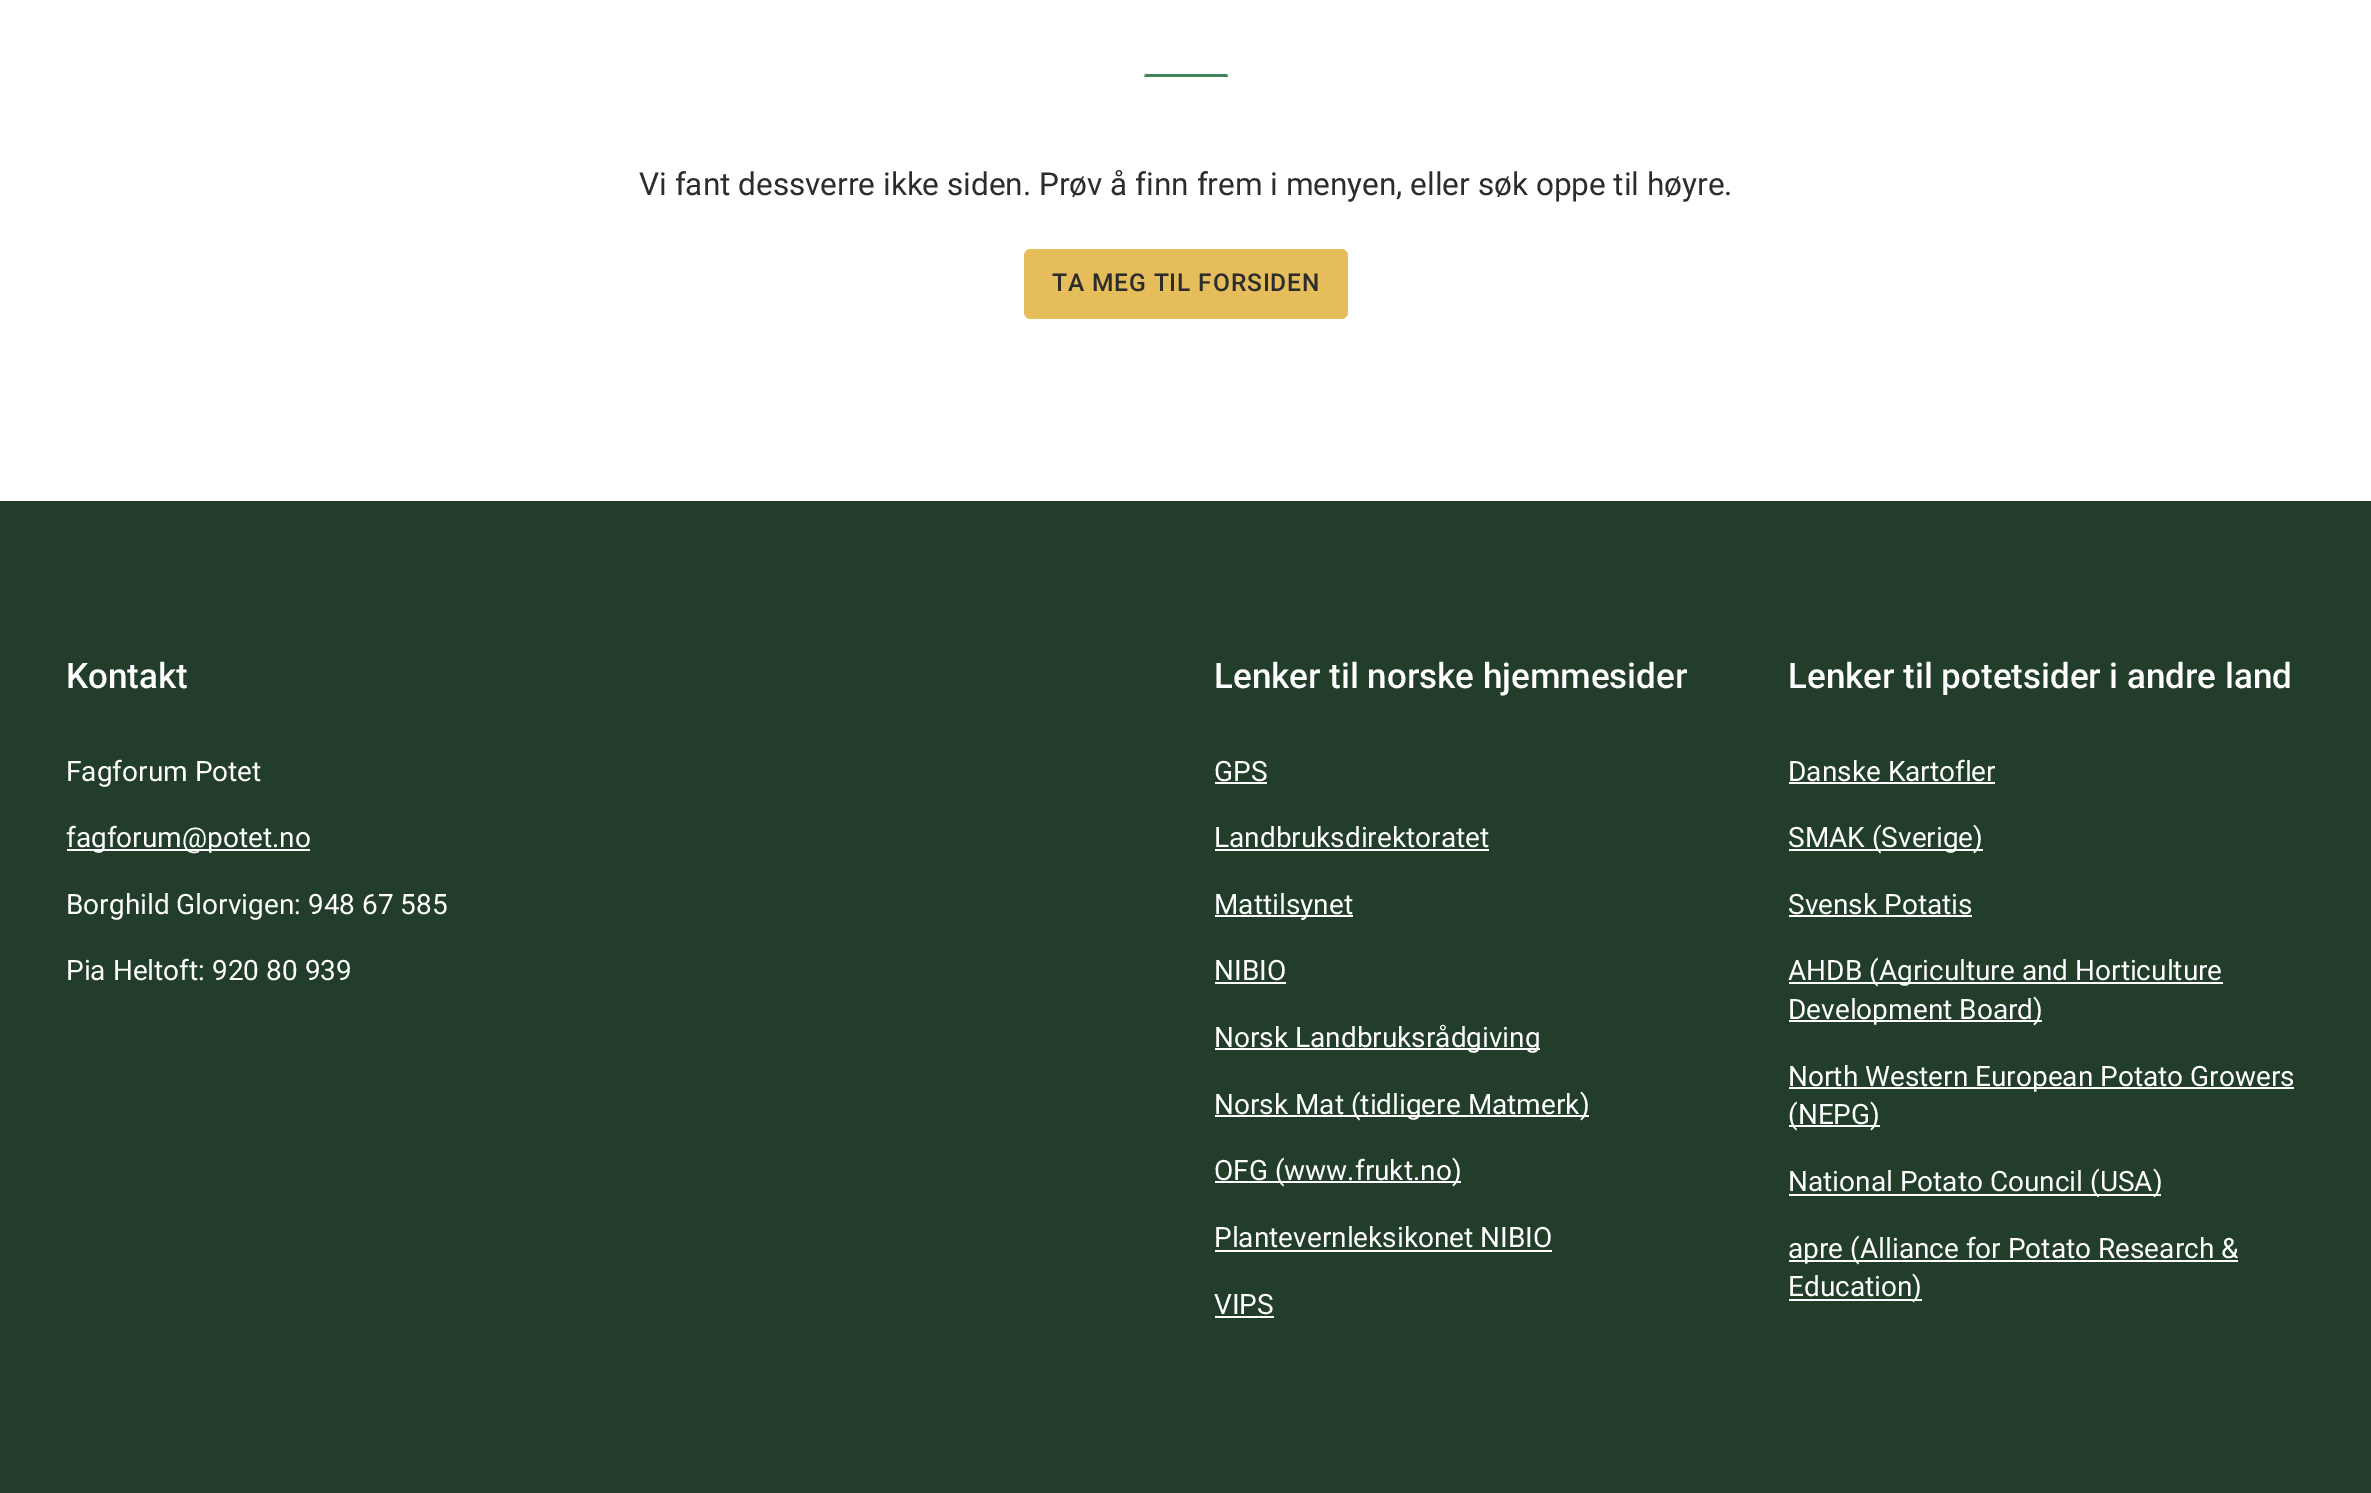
%!PS
<< /PageSize [2371 1493] >> setpagedevice
/m/moveto load def
/l/rlineto load def
/z/closepath load def
/f/fill load def
/C { dup -16 bitshift 255 div exch dup -8 bitshift 255 and 255 div exch 255 and 255 div setrgbcolor } def
/F { [ exch dup neg 0 0 3 -1 roll 0 0 ] selectfont } def
/T { moveto show } def
/R { rectfill } def
/Q { 5 dict begin { /r /h /w /y /x } { exch def } forall
  x r add y moveto x w add y 2 copy h add r arct x w add y h add x 1 index r arct
  x y h add x y r arct x y 2 copy exch w add exch r arct closepath end } def
0 1493 translate 1 -1 scale
4 setmiterlimit
16#FFFFFF C
0 0 2371 1493 R
16#EEEEEE C
1228.5 73.5 m 0 3.5 l -1.5 -3.5 l z f
16#418459 C
1228 77 m -84 0 l 2 -3 l 81 0 l z f
16#9F9F9F C
1144.5 77 m 0 -3.5 l 1.5 0 l z f
/Roboto-Regular 31.5 F
16#2C2C2C C
(Vi fant dessverre ikke siden. Prøv å finn frem i menyen, eller søk oppe til høyre.) 639 195 T
16#E5BD5A C
1024 249 324 70 7 Q f
/Roboto-Medium 24.5 F
16#2C2C2C C
1052 291 m .9 0 (TA MEG TIL FORSIDEN) ashow
16#223D2A C
0 501 2371 992 R
/Roboto-Medium 35 F
16#FFFFFF C
(Kontakt) 66 688 T
/Roboto-Regular 28 F
(Fagforum Potet) 66 781 T
67 849 243 2 R
(fagforum@potet.no) 66 847 T
(Borghild Glorvigen: 948 67 585) 66 914 T
(Pia Heltoft: 920 80 939) 66 980 T
/Roboto-Medium 35 F
(Lenker til norske hjemmesider) 1214 688 T
/Roboto-Regular 28 F
(GPS) 1214 781 T
1215 782 52 2 R
(Landbruksdirektoratet) 1214 847 T
1215 849 274 2 R
1215 915 138 2 R
(Mattilsynet) 1214 914 T
(NIBIO) 1214 980 T
1215 982 71 2 R
1215 1048 325 2 R
(Norsk Landbruksrådgiving) 1214 1047 T
1215 1115 374 2 R
(Norsk Mat \(tidligere Matmerk\)) 1214 1114 T
1215 1181 246 2 R
(OFG \(www.frukt.no\)) 1214 1180 T
(Plantevernleksikonet NIBIO) 1214 1247 T
1215 1250 337 2 R
(VIPS) 1214 1314 T
1215 1316 59 2 R
/Roboto-Medium 35 F
(Lenker til potetsider i andre land) 1788 688 T
/Roboto-Regular 28 F
(Danske Kartofler) 1788 781 T
1789 782 206 2 R
1789 849 194 2 R
(SMAK \(Sverige\)) 1788 847 T
(Svensk Potatis) 1788 914 T
1789 915 183 2 R
1789 982 434 2 R
(AHDB \(Agriculture and Horticulture) 1788 980 T
1789 1020 253 2 R
(Development Board\)) 1788 1019 T
1789 1087 505 2 R
(North Western European Potato Growers) 1788 1086 T
1789 1125 91 2 R
(\(NEPG\)) 1788 1124 T
1789 1194 372 2 R
(National Potato Council \(USA\)) 1788 1191 T
1789 1260 449 2 R
(apre \(Alliance for Potato Research &) 1788 1258 T
1789 1299 133 2 R
(Education\)) 1788 1296 T
showpage
